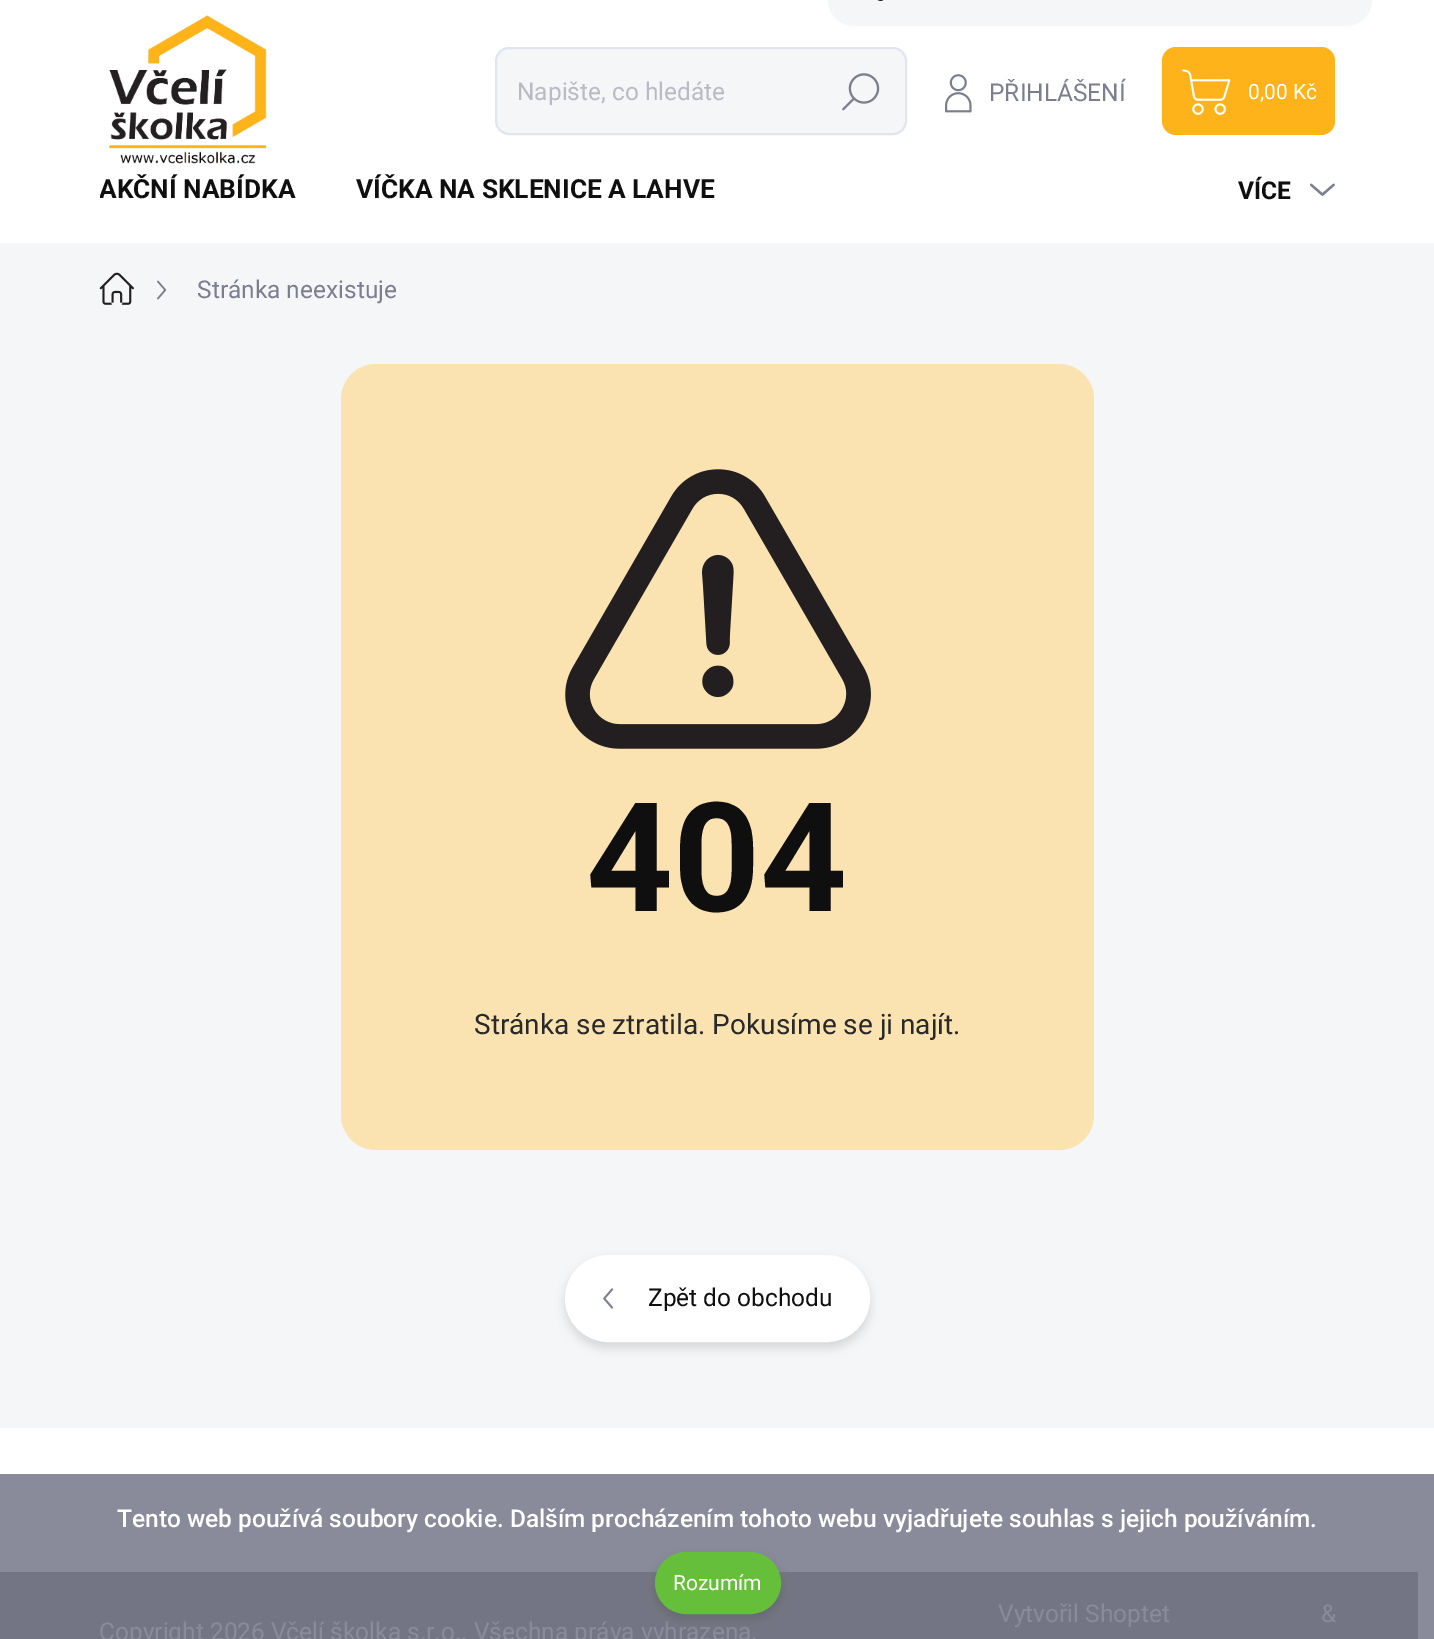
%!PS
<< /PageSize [1434 1639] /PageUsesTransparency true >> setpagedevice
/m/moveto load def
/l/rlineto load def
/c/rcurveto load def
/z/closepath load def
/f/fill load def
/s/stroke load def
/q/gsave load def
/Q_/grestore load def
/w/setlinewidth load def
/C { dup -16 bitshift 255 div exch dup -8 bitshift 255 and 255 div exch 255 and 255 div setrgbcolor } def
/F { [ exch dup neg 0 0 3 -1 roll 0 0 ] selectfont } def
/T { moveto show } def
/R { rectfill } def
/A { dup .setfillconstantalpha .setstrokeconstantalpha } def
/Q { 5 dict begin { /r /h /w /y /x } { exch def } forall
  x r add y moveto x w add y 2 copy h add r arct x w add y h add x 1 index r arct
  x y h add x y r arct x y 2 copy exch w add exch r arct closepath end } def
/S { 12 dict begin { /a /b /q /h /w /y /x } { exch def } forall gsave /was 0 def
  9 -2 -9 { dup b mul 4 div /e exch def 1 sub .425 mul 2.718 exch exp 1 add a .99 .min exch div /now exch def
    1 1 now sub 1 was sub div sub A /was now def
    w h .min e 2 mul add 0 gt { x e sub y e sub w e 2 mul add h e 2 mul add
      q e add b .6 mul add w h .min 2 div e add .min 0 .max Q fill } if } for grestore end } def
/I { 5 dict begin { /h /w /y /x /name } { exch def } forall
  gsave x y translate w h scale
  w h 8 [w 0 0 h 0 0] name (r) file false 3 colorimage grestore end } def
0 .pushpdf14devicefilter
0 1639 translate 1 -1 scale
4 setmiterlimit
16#F5F6F8 C
0 0 1434 1639 R
16#FFFFFF C
0 0 1434 243 R
16#F5F6F8 C
828 -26 m 544 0 l 0 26 l 0 14.5 -11.5 26 -26 26 c -492 0 l -14.5 0 -26 -11.5 -26 -26 c z f
(1.rgb) 877 0 7 1 I
(2.rgb) 108 15 159 149 I
496 48 410 86 13 Q q f Q_
16#E0E5EE C
2 w
s
/Roboto-Regular 24.5 F
16#B9BAC4 C
(Napište, co hledáte) 517 100 T
(3.rgb) 842 73 38 38 I
(4.rgb) 945 74 27 39 I
16#7C7E8F C
(PŘIHLÁŠENÍ) 989 101 T
16#FDB319 C
1162 47 173 88 14 Q f
(5.rgb) 1182 69 49 46 I
/Roboto-Regular 21 F
16#FFFFFF C
(0,00 Kč) 1248 99 T
q
100 138 1237 105 rectclip
/Roboto-Bold 26.25 F
16#0F0F0F C
(AKČNÍ NABÍDKA) 99 198 T
Q_
/Roboto-Bold 26.25 F
16#0F0F0F C
(VÍČKA NA SKLENICE A LAHVE) 356 198 T
/Roboto-Bold 24.5 F
(VÍCE) 1238 199 T
(6.rgb) 1310 183 25 13 I
(7.rgb) 99 272 35 33 I
(8.rgb) 157 280 10 20 I
/Roboto-Regular 24.5 F
16#7C7E8F C
(Stránka neexistuje) 197 298 T
16#FBE3B1 C
341 364 753 786 35 Q f
(9.rgb) 565 469 306 280 I
/Roboto-Bold 152 F
16#0F0F0F C
(404) 586 911 T
/Roboto-Regular 28 F
16#292929 C
(Stránka se ztratila. Pokusíme se ji najít.) 474 1034 T
16#000000 C
565 1260 305 88 44 5 .12 S
16#FFFFFF C
566 1256 303 85 42.5 Q q f Q_
s
(10.rgb) 603 1288 11 21 I
/Roboto-Regular 24.5 F
16#0F0F0F C
(Zpět do obchodu) 648 1306 T
16#FFFFFF C
0 1428 1434 46 R
16#898B9A C
0 1474 1434 165 R
16#737584 C
0 1572 1418 67 R
16#898B9A C
(Vytvořil Shoptet) 998 1622 T
(&) 1321 1622 T
(Copyright 2026 Včelí školka s.r.o.. Všechna práva vyhrazena.) 99 1640 T
/Roboto-Medium 24.5 F
16#FFFFFF C
(Tento web používá soubory cookie. Dalším procházením tohoto webu vyjadřujete souhlas s jejich používáním.) 117 1527 T
16#000000 C
655 1558 126 61 30.5 5 .12 S
16#66BF3A C
656 1553 124 60 30 Q q f Q_
s
/Roboto-Regular 21 F
16#FFFFFF C
(Rozumím) 673 1590 T
.poppdf14devicefilter showpage
